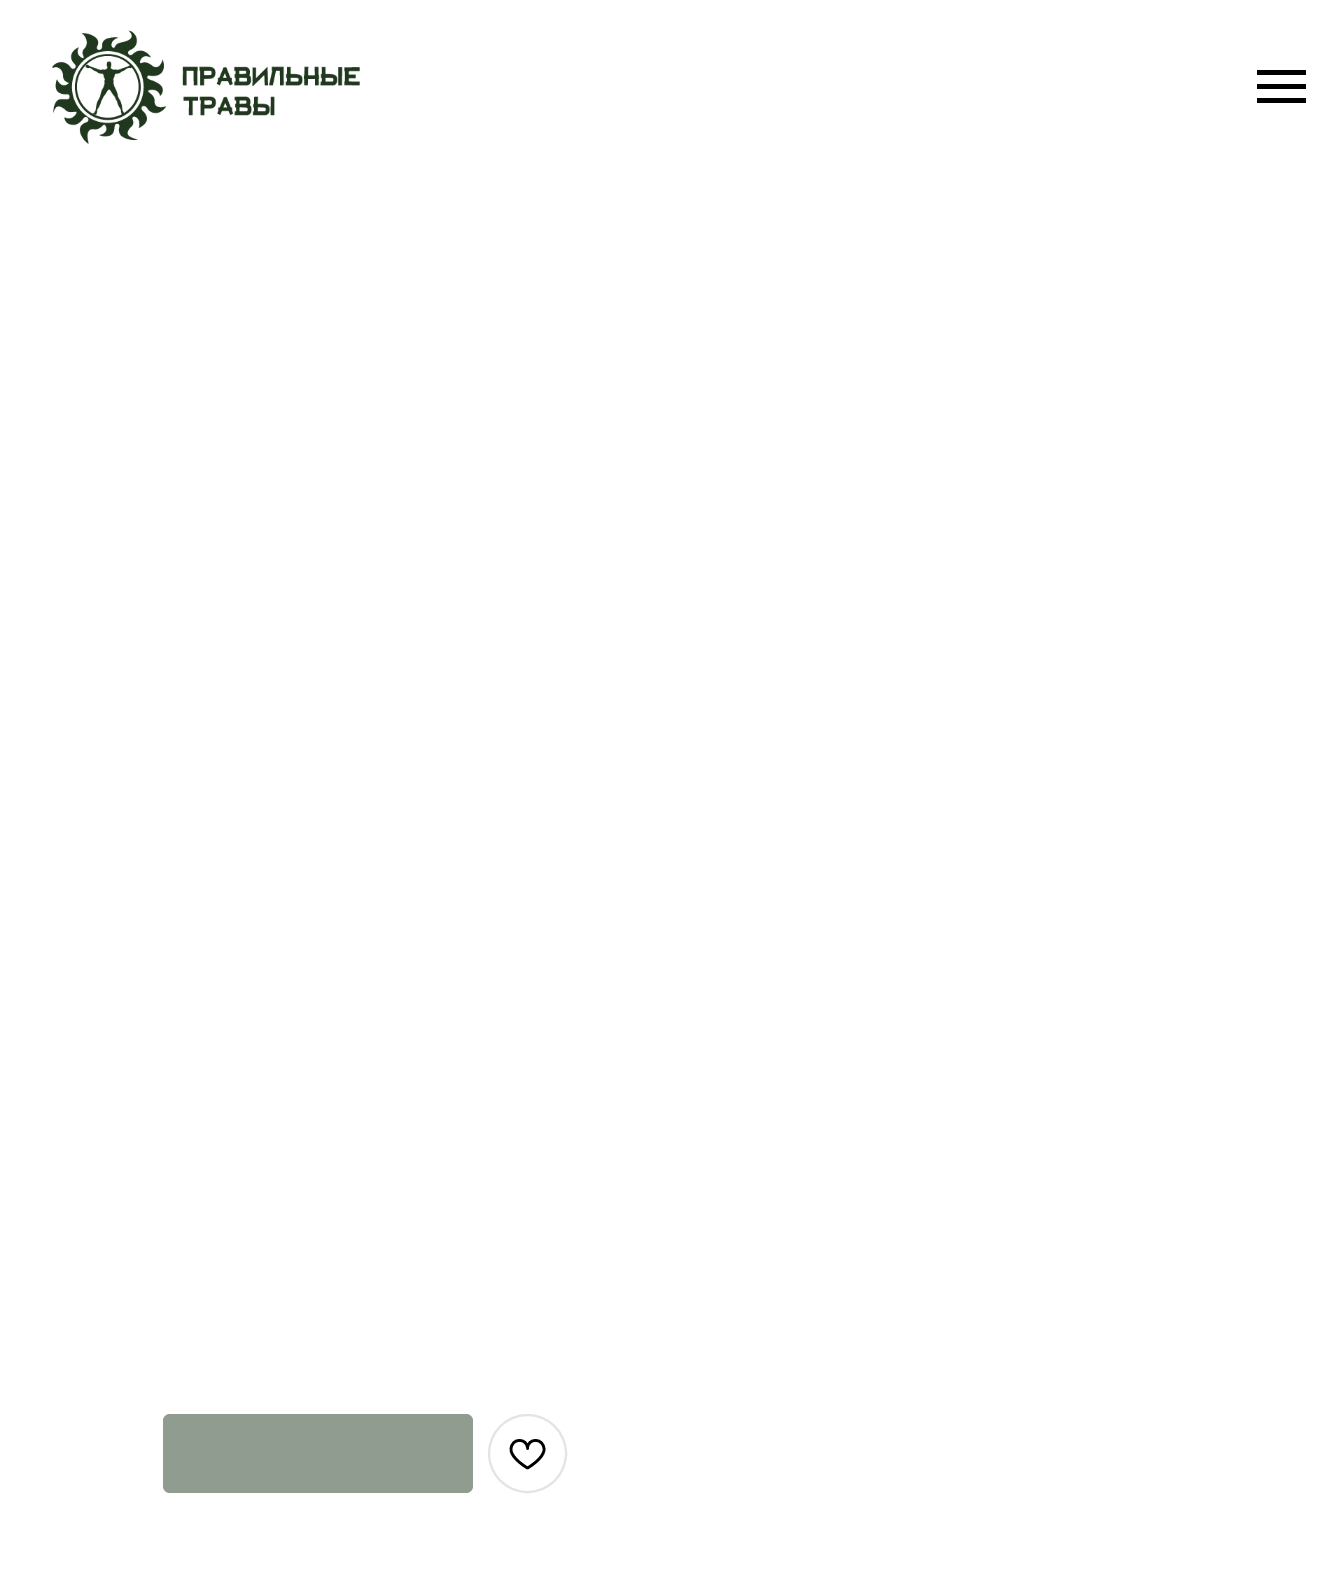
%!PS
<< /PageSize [1339 1596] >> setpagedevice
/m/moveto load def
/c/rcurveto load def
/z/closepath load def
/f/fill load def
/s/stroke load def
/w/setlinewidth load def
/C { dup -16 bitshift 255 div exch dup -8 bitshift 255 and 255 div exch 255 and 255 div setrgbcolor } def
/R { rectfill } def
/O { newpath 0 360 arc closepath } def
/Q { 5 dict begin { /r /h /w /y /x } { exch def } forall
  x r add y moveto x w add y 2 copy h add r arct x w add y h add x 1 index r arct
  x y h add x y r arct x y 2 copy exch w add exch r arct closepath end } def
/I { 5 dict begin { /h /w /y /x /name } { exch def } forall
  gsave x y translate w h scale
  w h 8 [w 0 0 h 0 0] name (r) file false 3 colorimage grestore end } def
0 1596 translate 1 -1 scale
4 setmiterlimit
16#FFFFFF C
0 0 1339 1596 R
(1.rgb) 52 30 308 114 I
16#000000 C
1257 70 49 5 R
1257 84 49 5 R
1257 98 49 5 R
16#909C8F C
163 1414 310 79 7 Q f
16#E4E4E4 C
2 w
527.5 1453.5 38.5 O s
16#000000 C
2.6 w
1 setlinejoin
544 1449.5 m 0 9 -16.5 18.5 -16.5 18.5 c 0 0 -16.5 -9.5 -16.5 -18.5 c 0 -12 16.5 -12 16.5 -1 c 0 -11 16.5 -11 16.5 1 c z s
showpage
